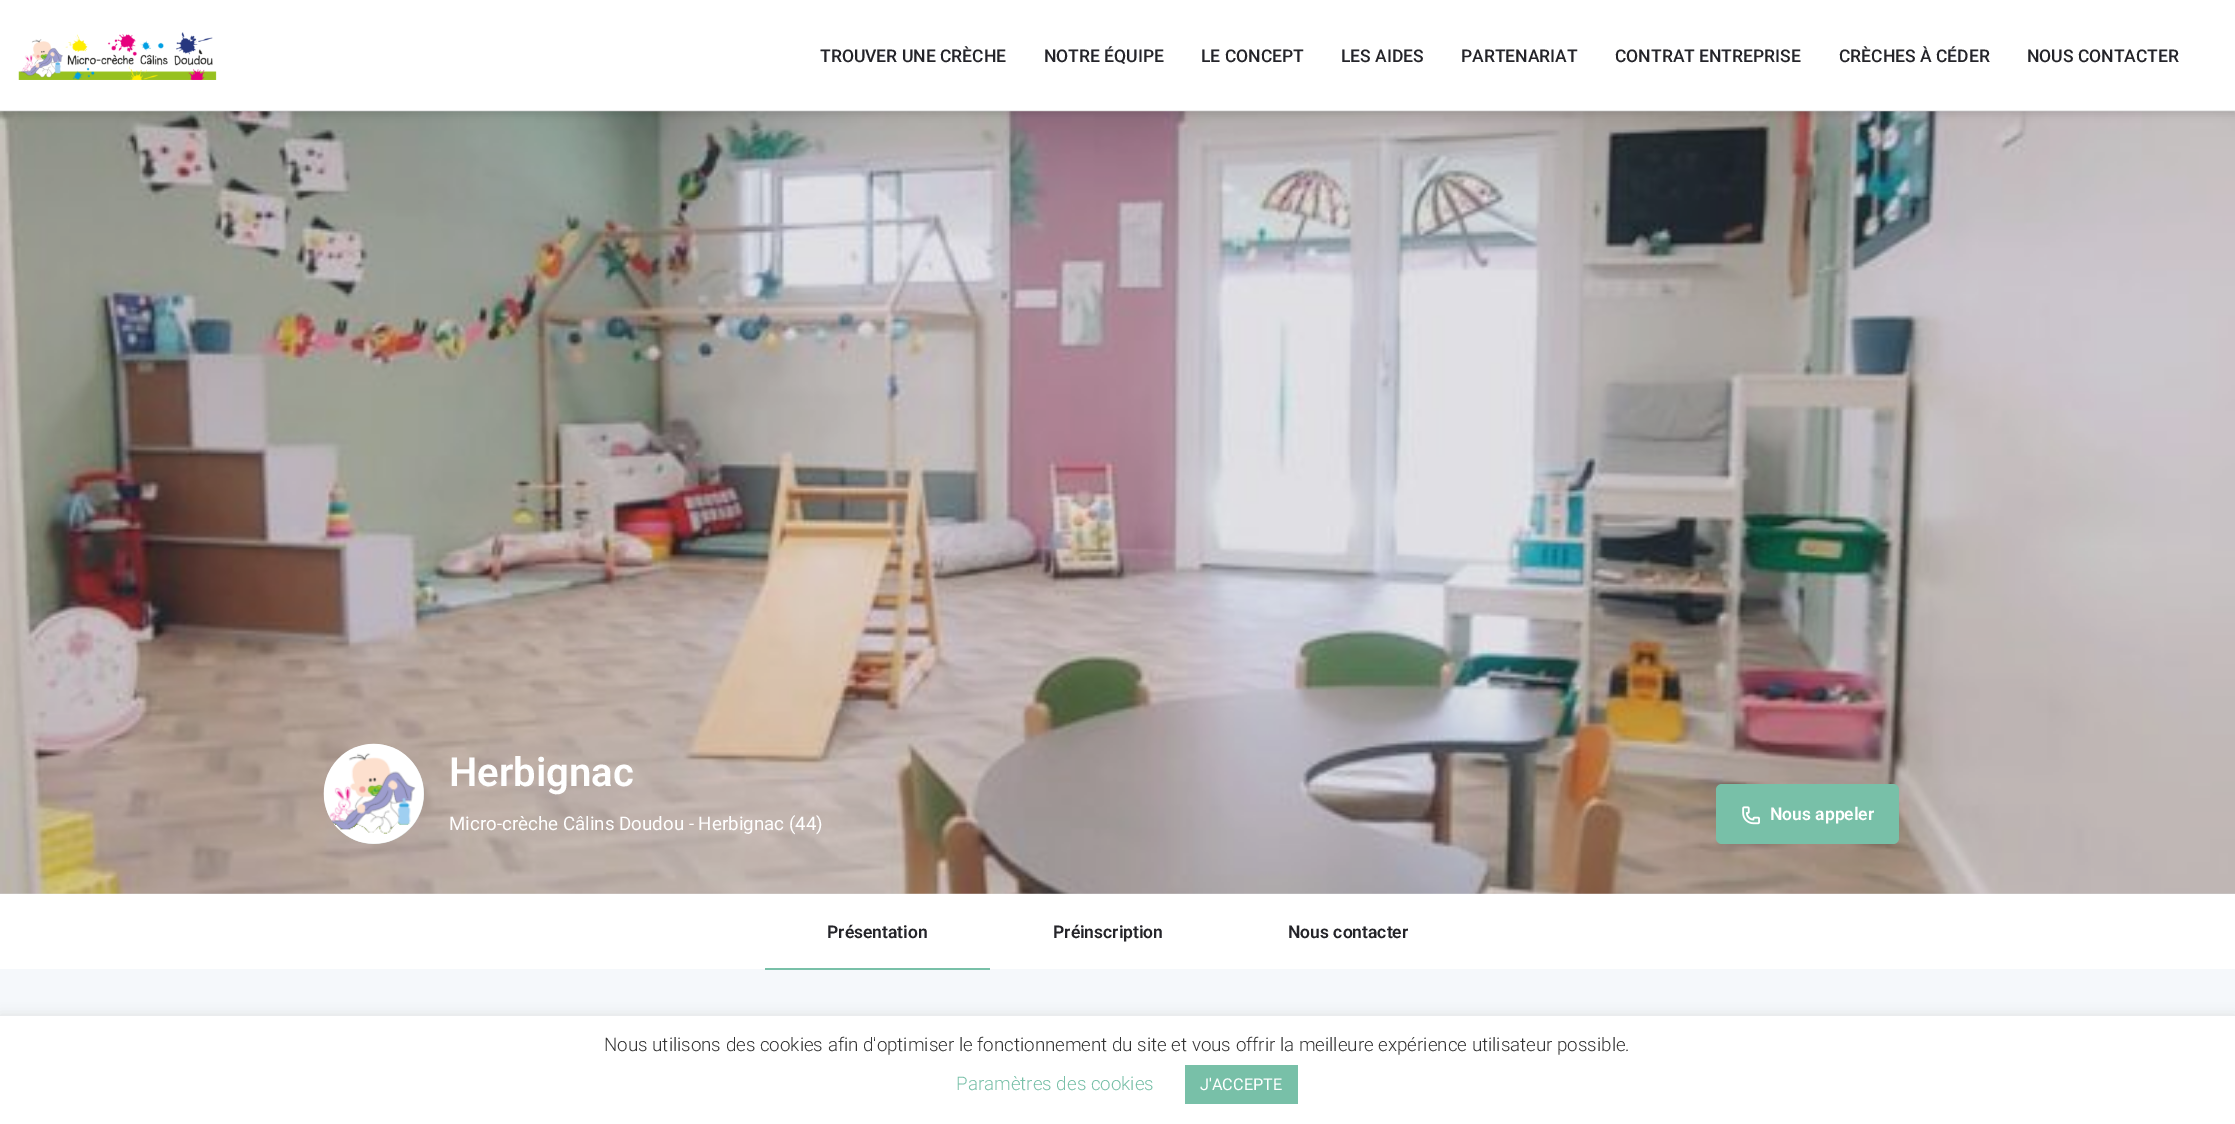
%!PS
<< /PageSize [2235 1124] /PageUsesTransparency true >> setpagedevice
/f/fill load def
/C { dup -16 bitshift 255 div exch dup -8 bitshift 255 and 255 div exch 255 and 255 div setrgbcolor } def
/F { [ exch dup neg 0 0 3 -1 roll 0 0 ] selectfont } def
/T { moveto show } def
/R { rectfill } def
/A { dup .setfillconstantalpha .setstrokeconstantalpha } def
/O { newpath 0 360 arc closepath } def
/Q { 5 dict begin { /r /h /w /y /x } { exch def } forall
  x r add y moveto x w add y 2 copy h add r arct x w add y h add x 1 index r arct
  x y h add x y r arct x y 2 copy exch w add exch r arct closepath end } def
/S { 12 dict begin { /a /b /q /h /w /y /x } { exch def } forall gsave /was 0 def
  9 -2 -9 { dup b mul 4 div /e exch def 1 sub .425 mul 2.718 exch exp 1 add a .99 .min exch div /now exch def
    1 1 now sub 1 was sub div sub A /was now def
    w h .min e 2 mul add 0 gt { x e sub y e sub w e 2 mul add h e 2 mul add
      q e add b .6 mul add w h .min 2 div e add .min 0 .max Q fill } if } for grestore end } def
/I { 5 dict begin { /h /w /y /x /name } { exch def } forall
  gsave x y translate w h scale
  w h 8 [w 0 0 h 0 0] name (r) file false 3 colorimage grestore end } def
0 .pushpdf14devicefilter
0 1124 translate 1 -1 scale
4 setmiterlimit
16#F5F8FB C
0 0 2235 1124 R
(2.rgb) 0 111 2235 783 I
16#000000 C
0 3 2235 111 0 4 .12 S
16#FFFFFF C
0 0 2235 110 R
16#EBEBEB C
0 110 2235 1 R
(1.rgb) 18 32 199 48 I
/Roboto-Medium 17.5 F
16#242429 C
(TROUVER UNE CRÈCHE) 820 62 T
(NOTRE ÉQUIPE) 1044 62 T
(LE CONCEPT) 1201 62 T
(LES AIDES) 1341 62 T
(PARTENARIAT) 1461 62 T
(CONTRAT ENTREPRISE) 1615 62 T
(CRÈCHES À CÉDER) 1839 62 T
(NOUS CONTACTER) 2027 62 T
16#DDE5E6 C
374 794 50 O f
(3.rgb) 323 743 101 101 I
/Roboto-SemiBold 40 F
16#FFFFFF C
(Herbignac) 449 786 T
/Roboto-Regular 18.75 F
(Micro-crèche Câlins Doudou - Herbignac \(44\)) 449 830 T
16#78C0A8 C
1716 784 183 60 6 Q f
(4.rgb) 1742 806 18 19 I
/Roboto-SemiBold 17.5 F
16#FFFFFF C
(Nous appeler) 1770 820 T
0 894 2235 75 R
16#242429 C
(Présentation) 827 938 T
16#78C0A8 C
765 968 225 2 R
16#242429 C
(Préinscription) 1053 938 T
(Nous contacter) 1288 938 T
16#ACABAB C
0 1015 2235 109 0 6 .3 S
16#FFFFFF C
0 1016 2235 108 R
/Roboto-Light 18.75 F
16#333333 C
(Nous utilisons des cookies afin d'optimiser le fonctionnement du site et vous offrir la meilleure expérience utilisateur possible.) 604 1051 T
16#78C0A8 C
(Paramètres des cookies) 956 1090 T
1185 1065 113 39 R
/Roboto-Regular 16.25 F
16#FFFFFF C
(J'ACCEPTE) 1200 1090 T
.poppdf14devicefilter showpage
